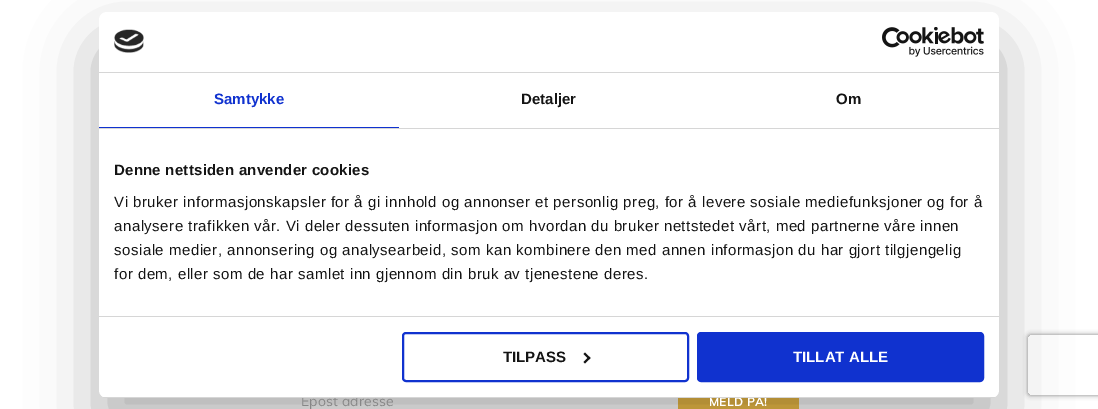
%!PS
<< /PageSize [1098 409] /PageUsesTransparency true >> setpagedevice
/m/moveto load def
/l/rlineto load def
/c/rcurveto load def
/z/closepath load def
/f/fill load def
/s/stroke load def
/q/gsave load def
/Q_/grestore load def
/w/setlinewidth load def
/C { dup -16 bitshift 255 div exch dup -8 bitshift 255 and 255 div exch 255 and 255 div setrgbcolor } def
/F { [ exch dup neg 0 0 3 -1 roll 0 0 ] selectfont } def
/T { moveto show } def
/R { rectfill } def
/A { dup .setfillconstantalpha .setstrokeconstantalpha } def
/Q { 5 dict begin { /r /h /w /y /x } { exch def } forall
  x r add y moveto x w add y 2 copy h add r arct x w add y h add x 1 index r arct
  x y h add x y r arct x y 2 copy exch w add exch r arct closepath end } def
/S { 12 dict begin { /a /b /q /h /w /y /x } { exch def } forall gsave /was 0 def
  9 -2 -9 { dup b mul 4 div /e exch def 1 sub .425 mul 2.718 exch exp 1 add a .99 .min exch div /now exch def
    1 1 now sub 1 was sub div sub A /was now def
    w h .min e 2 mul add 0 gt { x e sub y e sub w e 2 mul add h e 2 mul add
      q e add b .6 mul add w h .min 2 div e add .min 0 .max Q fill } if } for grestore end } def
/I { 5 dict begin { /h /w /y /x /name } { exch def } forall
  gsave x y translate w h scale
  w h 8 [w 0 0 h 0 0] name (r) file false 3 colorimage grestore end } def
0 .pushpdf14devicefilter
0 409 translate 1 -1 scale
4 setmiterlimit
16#FFFFFF C
0 0 1098 409 R
16#EFBB48 C
678 398 121 11 R
16#000000 C
99 44 900 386 8 34 .3 S
/Muli-Regular 14 F
16#878787 C
301 406 m .1 0 (Epost adresse) ashow
16#FFFFFF C
99 12 900 386 8 Q f
16#D6D6D6 C
99 72 900 1 R
(1.rgb) 114 29 30 24 I
(2.rgb) 882 27 102 30 I
99 128 900 1 R
16#1032CF C
99 127 300 1 R
/LiberationSans-Bold 15 F
(Samtykke) 214 104 T
16#141414 C
(Detaljer) 521 104 T
(Om) 836 104 T
16#D6D6D6 C
99 316 900 1 R
16#141414 C
114 175 m .25 0 (Denne nettsiden anvender cookies) ashow
/LiberationSans-Regular 15 F
114 207 m .5 0 (Vi bruker informasjonskapsler for å gi innhold og annonser et personlig preg, for å levere sosiale mediefunksjoner og for å) ashow
114 231 m .5 0 (analysere trafikken vår. Vi deler dessuten informasjon om hvordan du bruker nettstedet vårt, med partnerne våre innen) ashow
114 255 m .5 0 (sosiale medier, annonsering og analysearbeid, som kan kombinere den med annen informasjon du har gjort tilgjengelig) ashow
114 279 m .5 0 (for dem, eller som de har samlet inn gjennom din bruk av tjenestene deres.) ashow
/Muli-Bold 12 F
16#FFFFFF C
709 406 m .25 0 (MELD PÅ!) ashow
q
99 12 900 386 8 Q clip newpath
16#D6D6D6 C
99 397 900 1 R
Q_
16#1032CF C
2 w
403 333 285 48 3 Q s
/LiberationSans-Bold 15 F
16#141414 C
(TILPASS) 503 362 T
585 352.5 m 5.5 5.5 l -1.5 1.5 l -5.5 -5.5 l z f
589 356.5 m 1.5 1.5 l -5.5 5.5 l -1.5 -1.5 l z f
16#1032CF C
698 333 285 48 3 Q q f Q_
s
16#FFFFFF C
(TILLAT ALLE) 793 362 T
q
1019 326 m 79 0 l 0 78 l -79 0 l z 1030 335 m 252 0 l 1 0 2 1 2 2 c 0 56 l 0 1 -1 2 -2 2 c -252 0 l -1 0 -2 -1 -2 -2 c 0 -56 l 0 -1 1 -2 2 -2 c z eoclip newpath
16#808080 C
1028 335 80 60 2 2.5 1 S
Q_
.poppdf14devicefilter showpage
